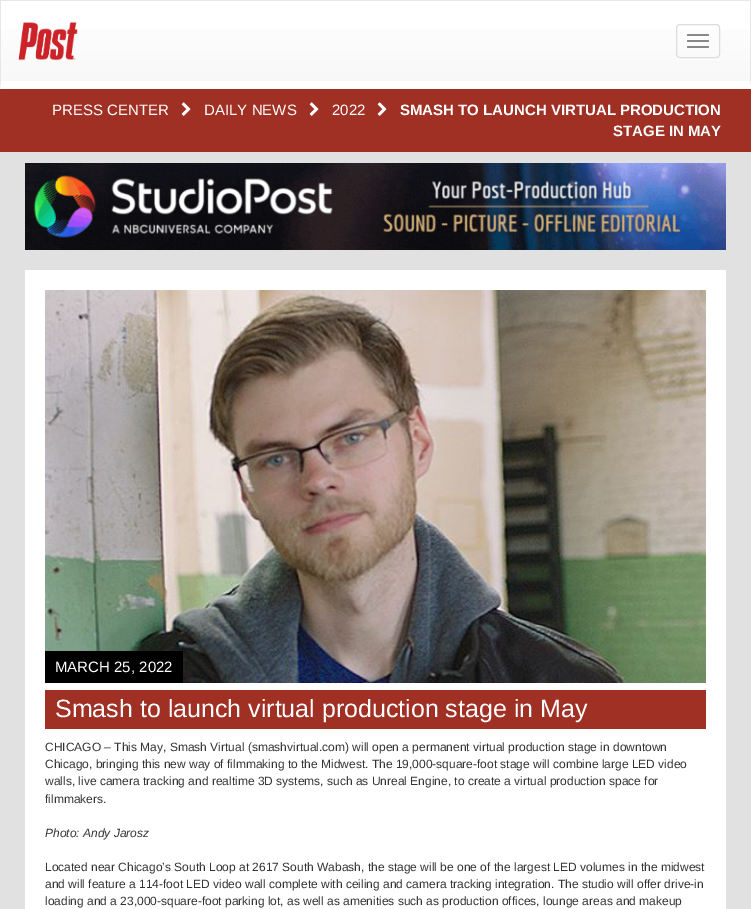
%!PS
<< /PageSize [751 909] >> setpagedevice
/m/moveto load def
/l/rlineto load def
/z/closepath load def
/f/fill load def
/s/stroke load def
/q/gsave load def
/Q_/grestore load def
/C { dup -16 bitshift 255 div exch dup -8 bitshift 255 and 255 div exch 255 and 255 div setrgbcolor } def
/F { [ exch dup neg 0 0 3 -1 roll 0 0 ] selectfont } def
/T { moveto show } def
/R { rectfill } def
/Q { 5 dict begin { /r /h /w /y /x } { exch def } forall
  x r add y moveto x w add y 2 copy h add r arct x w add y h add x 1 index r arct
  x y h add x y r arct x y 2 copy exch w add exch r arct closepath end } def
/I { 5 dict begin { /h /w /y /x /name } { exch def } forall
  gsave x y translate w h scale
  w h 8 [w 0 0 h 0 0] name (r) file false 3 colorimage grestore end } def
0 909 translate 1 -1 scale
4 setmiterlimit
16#FFFFFF C
0 0 751 909 R
q 1 30 m 749 0 l 0 51 l -749 0 l z clip newpath
<< /ShadingType 2 /ColorSpace /DeviceRGB /Coords [376 1 376 81] /Extend [true true] /Function << /FunctionType 2 /Domain [0 1] /C0 [1 1 1] /C1 [.973 .973 .973] /N 1 >> >> shfill Q_
16#E7E7E7 C
0 0 751 1 R
751 0 m 0 89 l -1 -8 l 0 -80 l z f
16#FFFFFF C
751 89 m -751 0 l 1 -8 l 749 0 l z f
16#E7E7E7 C
0 89 m 0 -89 l 1 1 l 0 80 l z f
(1.rgb) 18 22 60 39 I
16#DDDDDD C
676.5 24.5 43 33 3.5 Q s
16#888888 C
687 34 22 2 1 Q f
687 40 22 2 1 Q f
687 46 22 2 1 Q f
16#A02F24 C
0 89 751 63 R
/LiberationSans-Regular 15 F
16#FFFFFF C
(PRESS CENTER) 52 115 T
(2.rgb) 181 102 10 14 I
(DAILY NEWS) 204 115 T
(2.rgb) 309 102 10 14 I
(2022) 332 115 T
(2.rgb) 377 102 10 14 I
/LiberationSans-Bold 15 F
(SMASH TO LAUNCH VIRTUAL PRODUCTION) 400 115 T
(STAGE IN MAY) 613 136 T
16#E1E1E1 C
0 152 751 757 R
(3.rgb) 25 163 701 87 I
16#FFFFFF C
25 270 701 639 R
(4.rgb) 45 290 661 393 I
16#000000 C
45 651 138 32 R
/LiberationSans-Regular 15 F
16#FFFFFF C
(MARCH 25, 2022) 55 672 T
16#A02F24 C
45 690 661 39 R
/LiberationSans-Regular 25 F
16#FFFFFF C
(Smash to launch virtual production stage in May) 55 717 T
/LiberationSans-Regular 12 F
16#333333 C
(CHICAGO – This May, Smash Virtual \(smashvirtual.com\) will open a permanent virtual production stage in downtown) 45 751 T
(Chicago, bringing this new way of filmmaking to the Midwest. The 19,000-square-foot stage will combine large LED video) 45 768 T
(walls, live camera tracking and realtime 3D systems, such as Unreal Engine, to create a virtual production space for) 45 785 T
(filmmakers.) 45 803 T
/LiberationSans-Italic 12 F
(Photo: Andy Jarosz) 45 837 T
/LiberationSans-Regular 12 F
(Located near Chicago’s South Loop at 2617 South Wabash, the stage will be one of the largest LED volumes in the midwest) 45 871 T
(and will feature a 114-foot LED video wall complete with ceiling and camera tracking integration. The studio will offer drive-in) 45 888 T
(loading and a 23,000-square-foot parking lot, as well as amenities such as production offices, lounge areas and makeup) 45 905 T
showpage
